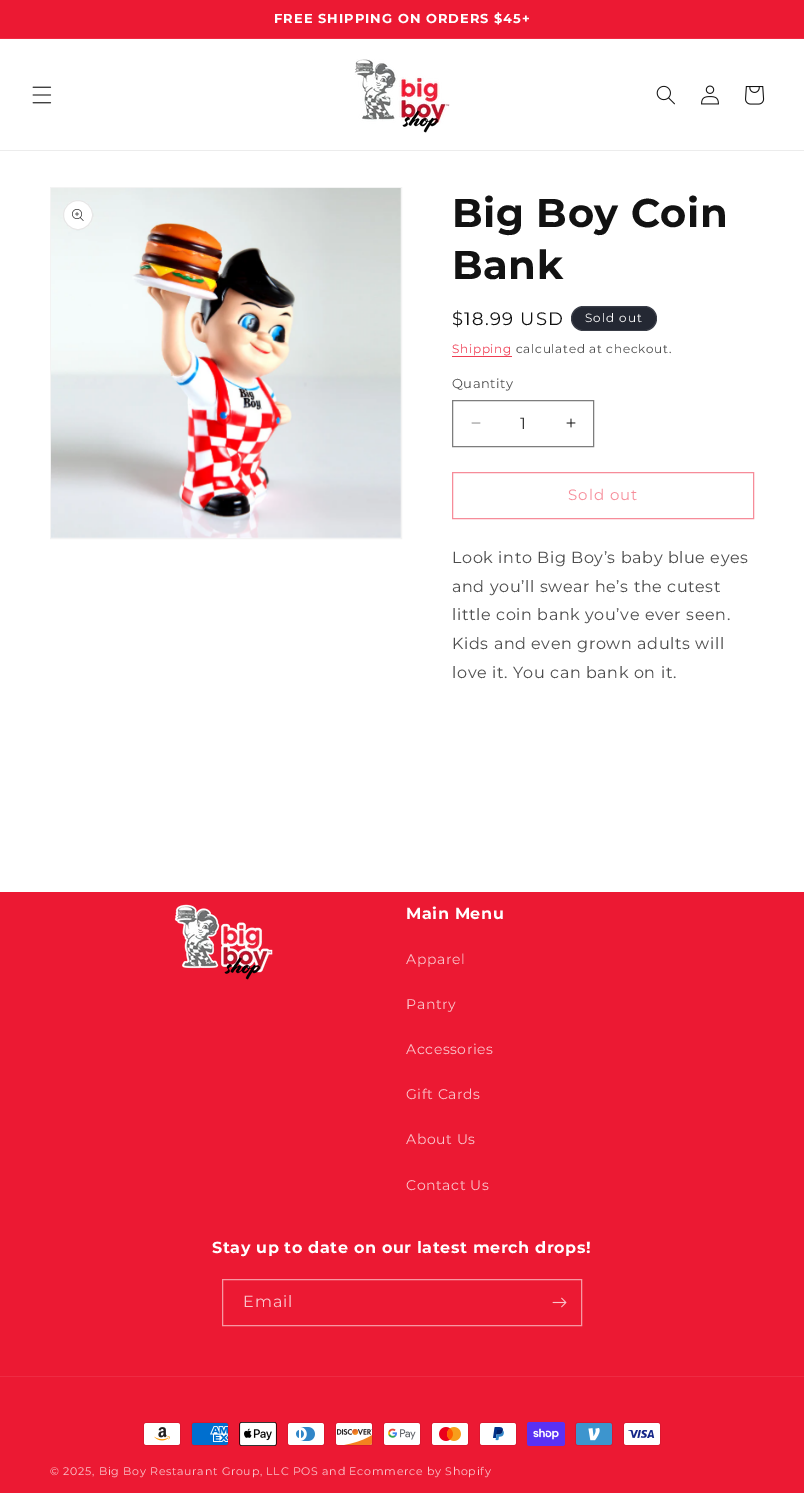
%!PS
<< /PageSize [804 1493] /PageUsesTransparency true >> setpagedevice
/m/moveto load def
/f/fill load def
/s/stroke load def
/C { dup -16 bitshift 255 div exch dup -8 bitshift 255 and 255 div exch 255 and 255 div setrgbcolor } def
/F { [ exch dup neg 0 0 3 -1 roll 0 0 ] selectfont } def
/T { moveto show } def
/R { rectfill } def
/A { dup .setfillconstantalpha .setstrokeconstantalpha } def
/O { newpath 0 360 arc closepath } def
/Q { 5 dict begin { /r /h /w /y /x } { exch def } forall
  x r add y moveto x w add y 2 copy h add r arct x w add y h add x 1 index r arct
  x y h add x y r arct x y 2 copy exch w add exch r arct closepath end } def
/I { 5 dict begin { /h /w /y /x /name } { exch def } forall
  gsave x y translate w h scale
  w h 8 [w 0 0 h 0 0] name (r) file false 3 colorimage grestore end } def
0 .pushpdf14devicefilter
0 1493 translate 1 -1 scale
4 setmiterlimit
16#FFFFFF C
0 0 804 1493 R
16#EC1933 C
0 0 804 38 R
16#EE2B43 C
0 38 804 1 R
/Montserrat-Bold 13 F
16#FFFFFF C
274 23 m 1 0 (FREE SHIPPING ON ORDERS $45+) ashow
16#ECECEC C
0 150 804 1 R
(1.rgb) 32 86 20 18 I
(2.rgb) 354 59 96 74 I
(3.rgb) 656 85 19 20 I
(4.rgb) 701 85 18 20 I
(5.rgb) 745 86 20 19 I
16#F3F3F3 C
50.5 187.5 351 351 rectstroke
(6.rgb) 51 188 350 350 I
16#FFFFFF C
78 215 15 O f
0.1 A
16#121212 C
78 215 14.5 O s
1 A
(7.rgb) 72 209 12 12 I
/Montserrat-Bold 40 F
452 227 m .6 0 (Big Boy Coin) ashow
452 279 m .6 0 (Bank) ashow
/Montserrat-Regular 18 F
452 325 m 1.25 0 ($18.99 USD) ashow
16#242833 C
571 306 86 25 12.5 Q f
0.1 A
16#FFFFFF C
571.5 306.5 85 24 12 Q s
/Montserrat-Regular 12 F
1 A
585 322 m 1 0 (Sold out) ashow
16#EF3C52 C
452 353 m .7 0 (Shipping) ashow
452 356 60 1 R
16#4D4D4D C
516 353 m .7 0 (calculated at checkout.) ashow
/Montserrat-Regular 13 F
452 388 m .5 0 (Quantity) ashow
(8.rgb) 471 422 10 2 I
(9.rgb) 566 418 10 10 I
16#7D7D7D C
452.5 400.5 141 46 rectstroke
/Montserrat-Regular 16 F
16#363636 C
(1) 520 429 T
16#F68C99 C
452.5 472.5 301 46 rectstroke
/Montserrat-Regular 15 F
568 500 m 1 0 (Sold out) ashow
/Montserrat-Regular 16 F
16#4D4D4D C
452 563 m .6 0 (Look into Big Boy’s baby blue eyes) ashow
452 592 m .6 0 (and you’ll swear he’s the cutest) ashow
452 620 m .6 0 (little coin bank you’ve ever seen.) ashow
452 649 m .6 0 (Kids and even grown adults will) ashow
452 678 m .6 0 (love it. You can bank on it.) ashow
16#EC1933 C
0 892 804 601 R
(10.rgb) 174 904 99 76 I
/Montserrat-Bold 16 F
16#FFFFFF C
406 919 m .6 0 (Main Menu) ashow
/Montserrat-Regular 14 F
16#FAC6CC C
406 964 m .6 0 (Apparel) ashow
406 1009 m .6 0 (Pantry) ashow
406 1054 m .6 0 (Accessories) ashow
406 1099 m .6 0 (Gift Cards) ashow
406 1144 m .6 0 (About Us) ashow
406 1190 m .6 0 (Contact Us) ashow
/Montserrat-Bold 16 F
16#FFFFFF C
212 1253 m .6 0 (Stay up to date on our latest merch drops!) ashow
16#F698A3 C
222.5 1279.5 359 46 rectstroke
/Montserrat-Regular 16 F
16#FAC6CC C
243 1307 m 1 0 (Email) ashow
(11.rgb) 552 1297 15 11 I
16#EE2B43 C
0 1376 804 1 R
(12.rgb) 143 1422 38 24 I
(13.rgb) 191 1422 38 24 I
(14.rgb) 239 1422 38 24 I
(15.rgb) 287 1422 38 24 I
(16.rgb) 335 1422 38 24 I
(17.rgb) 383 1422 38 24 I
(18.rgb) 431 1422 38 24 I
(19.rgb) 479 1422 38 24 I
(20.rgb) 527 1422 38 24 I
(21.rgb) 575 1422 38 24 I
(22.rgb) 623 1422 38 24 I
/Montserrat-Regular 11 F
16#FAC6CC C
50 1475 m .7 0 (© 2025, Big Boy Restaurant Group, LLC POS and Ecommerce by Shopify) ashow
.poppdf14devicefilter showpage
